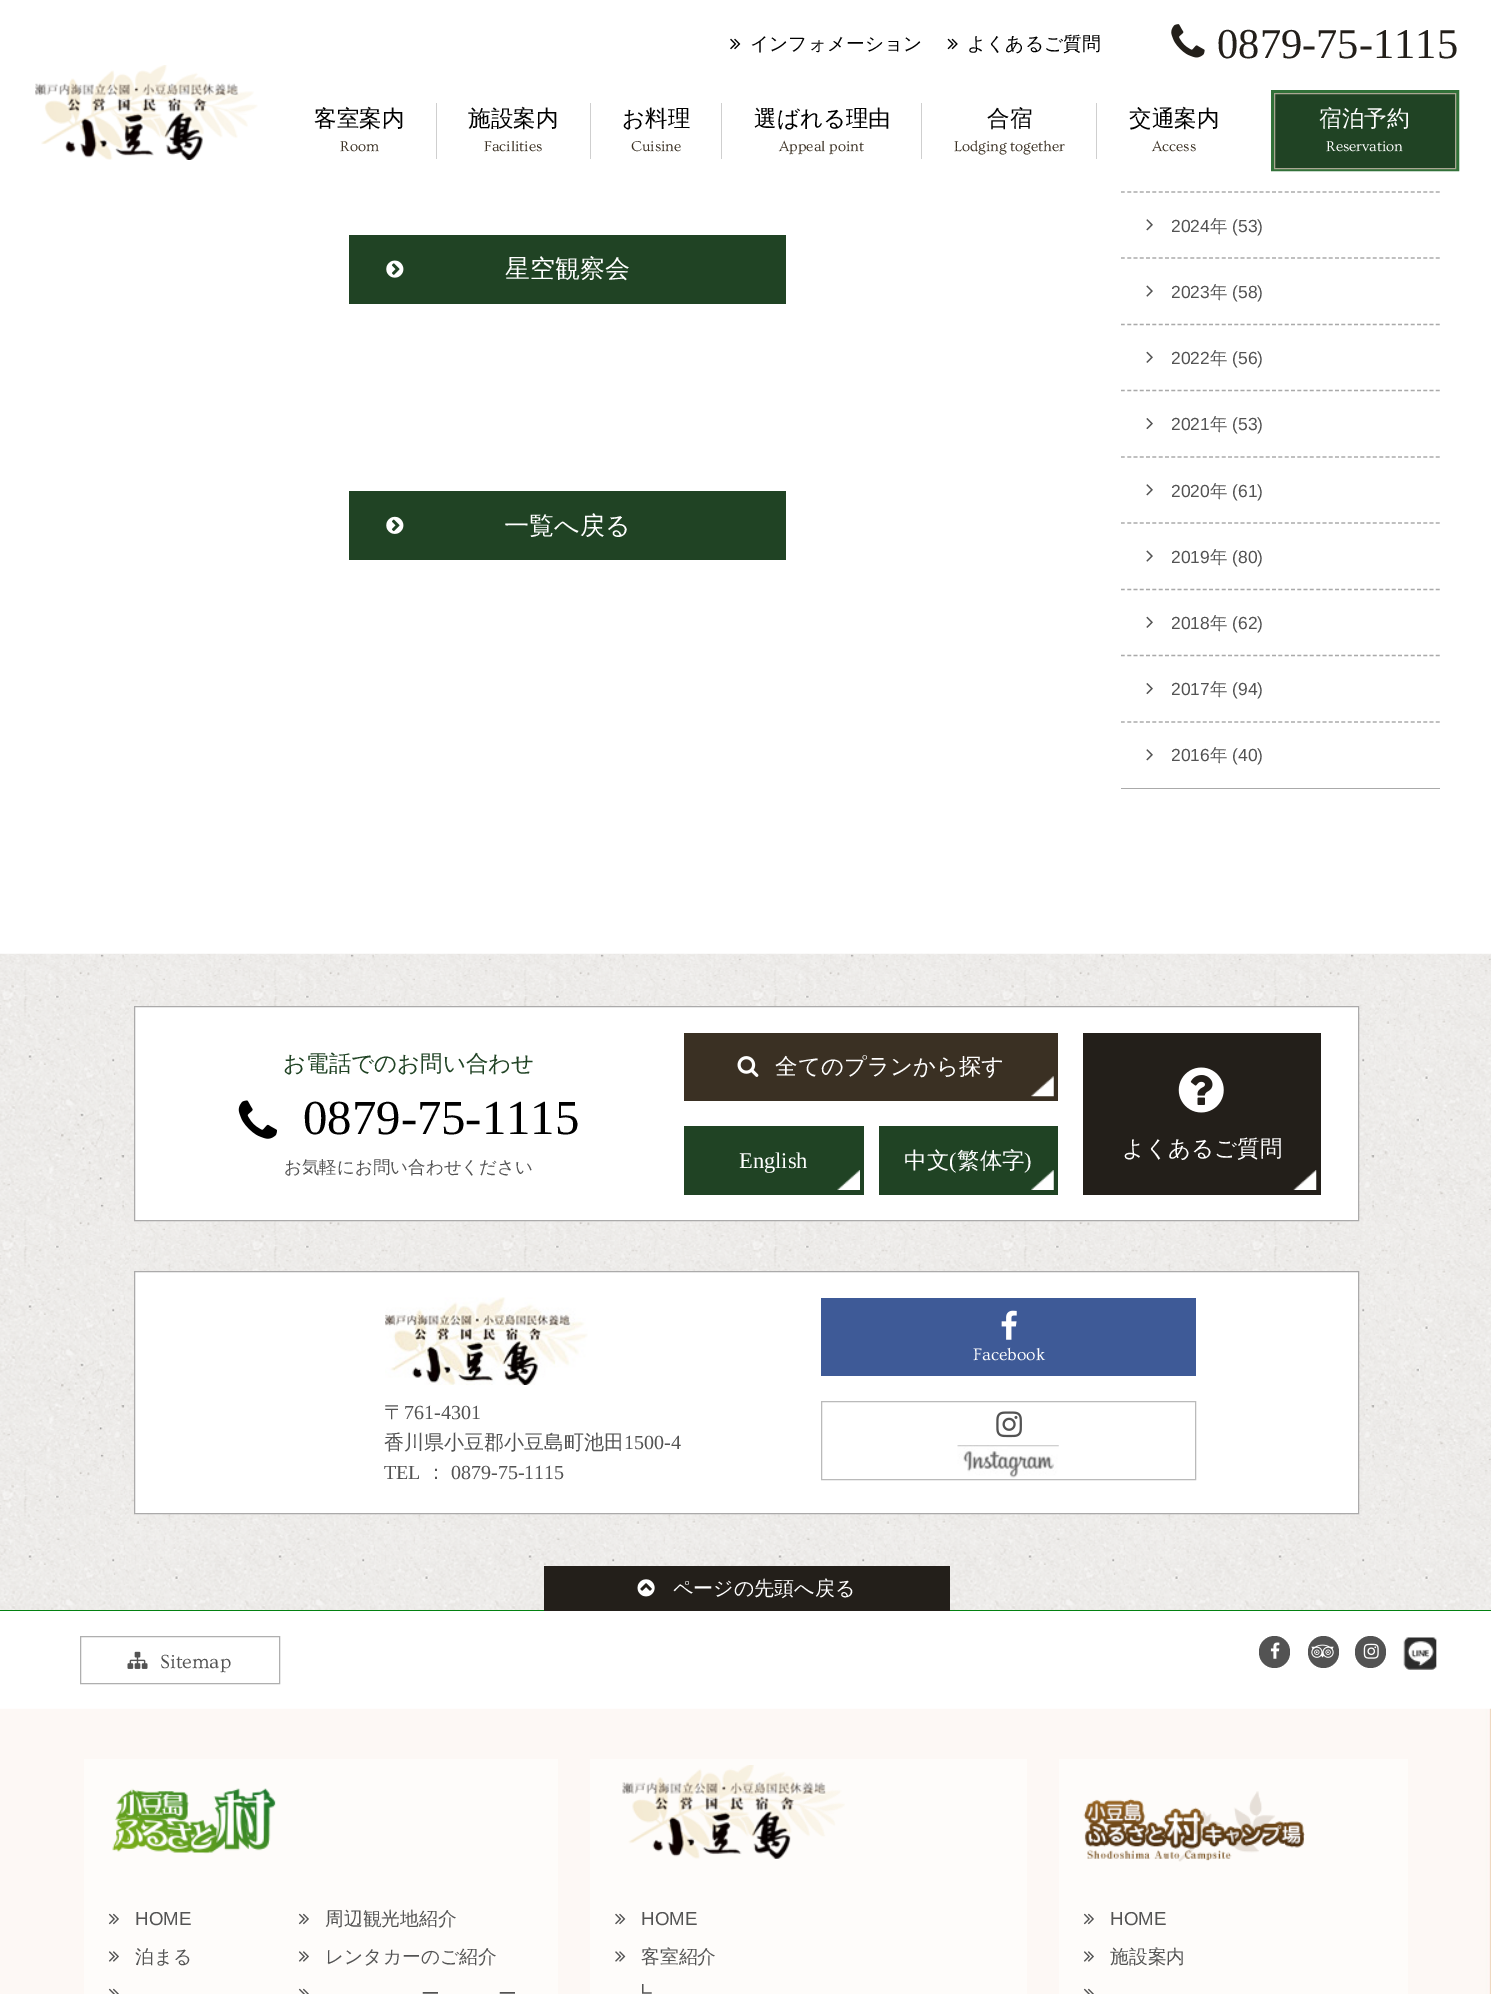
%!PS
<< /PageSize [1491 1994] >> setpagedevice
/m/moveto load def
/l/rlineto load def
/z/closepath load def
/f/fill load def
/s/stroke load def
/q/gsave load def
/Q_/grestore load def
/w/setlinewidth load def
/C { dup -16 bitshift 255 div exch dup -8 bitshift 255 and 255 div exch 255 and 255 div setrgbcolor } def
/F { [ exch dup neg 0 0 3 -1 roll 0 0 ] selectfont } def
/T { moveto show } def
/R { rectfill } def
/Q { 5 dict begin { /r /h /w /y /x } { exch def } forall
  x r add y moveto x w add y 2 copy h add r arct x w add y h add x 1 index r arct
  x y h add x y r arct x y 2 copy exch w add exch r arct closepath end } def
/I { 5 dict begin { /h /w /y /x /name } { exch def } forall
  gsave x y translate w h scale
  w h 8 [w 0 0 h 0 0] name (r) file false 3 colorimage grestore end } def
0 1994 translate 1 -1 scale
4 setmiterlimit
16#FFFFFF C
0 0 1491 1994 R
(1.rgb) 730 38 11 12 I
/WenQuanYiZenHei-Medium 18.75 F
16#000000 C
(インフォメーション) 750 50 T
(2.rgb) 947 38 11 12 I
(よくあるご質問) 967 50 T
(3.rgb) 1171 24 34 34 I
/LiberationSerif-Regular 42.5 F
16#231F1A C
(0879-75-1115) 1217 58 T
(4.rgb) 35 65 223 95 I
16#CFCFCF C
436 103 1 56 R
/WenQuanYiZenHei-Medium 22.5 F
16#000000 C
(客室案内) 314 126 T
/Ovo-Regular 15 F
16#3A3023 C
(Room) 340 151 T
16#CFCFCF C
590 103 1 56 R
/WenQuanYiZenHei-Medium 22.5 F
16#000000 C
(施設案内) 468 126 T
/Ovo-Regular 15 F
16#3A3023 C
(Facilities) 484 151 T
16#CFCFCF C
721 103 1 56 R
/WenQuanYiZenHei-Medium 22.5 F
16#000000 C
(お料理) 622 126 T
/Ovo-Regular 15 F
16#3A3023 C
(Cuisine) 631 151 T
16#CFCFCF C
921 103 1 56 R
/WenQuanYiZenHei-Medium 22.5 F
16#000000 C
(選ばれる理由) 754 126 T
/Ovo-Regular 15 F
16#3A3023 C
(Appeal point) 779 151 T
16#CFCFCF C
1096 103 1 56 R
/WenQuanYiZenHei-Medium 22.5 F
16#000000 C
(合宿) 987 126 T
/Ovo-Regular 15 F
16#3A3023 C
(Lodging together) 954 151 T
/WenQuanYiZenHei-Medium 22.5 F
16#000000 C
(交通案内) 1129 126 T
/Ovo-Regular 15 F
16#3A3023 C
(Access) 1152 151 T
16#327139 C
3 w
1272.5 91.5 185 78 rectstroke
16#204324 C
1274.5 93.5 m 181 0 l 0 75 l -181 0 l z q f Q_
16#AAA793 C
1 w
s
/WenQuanYiZenHei-Medium 22.5 F
16#FFFFFF C
(宿泊予約) 1319 126 T
/Ovo-Regular 15 F
(Reservation) 1326 151 T
16#204324 C
349 235 437 69 R
(5.rgb) 386 260 18 18 I
/WenQuanYiZenHei-Medium 25 F
16#FFFFFF C
(星空観察会) 505 277 T
16#204324 C
349 491 437 69 R
(6.rgb) 386 516 18 18 I
16#FFFFFF C
(一覧へ戻る) 504 534 T
16#AAAAAA C
1121 788 319 1 R
1.2 w
[3.75 2.55] 0 setdash
1121 192 m 319 0 l s
1121 258 m 319 0 l s
(7.rgb) 1146 219 7 12 I
/LiberationSans-Regular 17.5 F
16#535353 C
(2024) 1171 232 T
/WenQuanYiZenHei-Medium 17.5 F
(年) 1210 232 T
/LiberationSans-Regular 17.5 F
(\(53\)) 1232 232 T
16#AAAAAA C
1121 324.5 m 319 0 l s
(8.rgb) 1146 285 7 12 I
16#535353 C
(2023) 1171 298 T
/WenQuanYiZenHei-Medium 17.5 F
(年) 1210 298 T
/LiberationSans-Regular 17.5 F
(\(58\)) 1232 298 T
16#AAAAAA C
1121 390.5 m 319 0 l s
(9.rgb) 1146 351 7 12 I
16#535353 C
(2022) 1171 364 T
/WenQuanYiZenHei-Medium 17.5 F
(年) 1210 364 T
/LiberationSans-Regular 17.5 F
(\(56\)) 1232 364 T
16#AAAAAA C
1121 457 m 319 0 l s
(10.rgb) 1146 418 7 12 I
16#535353 C
(2021) 1171 430 T
/WenQuanYiZenHei-Medium 17.5 F
(年) 1210 430 T
/LiberationSans-Regular 17.5 F
(\(53\)) 1232 430 T
16#AAAAAA C
1121 523 m 319 0 l s
(7.rgb) 1146 484 7 12 I
16#535353 C
(2020) 1171 497 T
/WenQuanYiZenHei-Medium 17.5 F
(年) 1210 497 T
/LiberationSans-Regular 17.5 F
(\(61\)) 1232 497 T
16#AAAAAA C
1121 589.5 m 319 0 l s
(8.rgb) 1146 550 7 12 I
16#535353 C
(2019) 1171 563 T
/WenQuanYiZenHei-Medium 17.5 F
(年) 1210 563 T
/LiberationSans-Regular 17.5 F
(\(80\)) 1232 563 T
16#AAAAAA C
1121 655.5 m 319 0 l s
(9.rgb) 1146 616 7 12 I
16#535353 C
(2018) 1171 629 T
/WenQuanYiZenHei-Medium 17.5 F
(年) 1210 629 T
/LiberationSans-Regular 17.5 F
(\(62\)) 1232 629 T
16#AAAAAA C
1121 722 m 319 0 l s
(10.rgb) 1146 683 7 12 I
16#535353 C
(2017) 1171 695 T
/WenQuanYiZenHei-Medium 17.5 F
(年) 1210 695 T
/LiberationSans-Regular 17.5 F
(\(94\)) 1232 695 T
(7.rgb) 1146 749 7 12 I
(2016) 1171 761 T
/WenQuanYiZenHei-Medium 17.5 F
(年) 1210 761 T
/LiberationSans-Regular 17.5 F
(\(40\)) 1232 761 T
(11.rgb) 0 953 1491 657 I
16#FFFFFF C
134.5 1006.5 m 1224 0 l 0 214 l -1224 0 l z q f Q_
16#ABAAAA C
1 w
[] 0 setdash
s
/WenQuanYiZenHei-Medium 22.5 F
16#204324 C
(お電話でのお問い合わせ) 283 1071 T
(12.rgb) 238 1100 39 39 I
/LiberationSerif-Regular 48.75 F
16#000000 C
(0879-75-1115) 303 1134 T
/WenQuanYiZenHei-Medium 17.5 F
16#535353 C
(お気軽にお問い合わせください) 284 1173 T
16#3A3023 C
684 1033 374 68 R
(13.rgb) 737 1056 22 21 I
/WenQuanYiZenHei-Medium 22.5 F
16#FFFFFF C
(全てのプランから探す) 775 1074 T
(14.rgb) 1031 1076 23 21 I
16#204324 C
684 1126 180 69 R
/LiberationSerif-Regular 22.5 F
16#FFFFFF C
(English) 739 1168 T
(15.rgb) 837 1170 23 20 I
16#204324 C
879 1126 179 69 R
/WenQuanYiZenHei-Medium 22.5 F
16#FFFFFF C
(中文) 904 1168 T
/LiberationSerif-Regular 22.5 F
(\() 949 1168 T
/WenQuanYiZenHei-Medium 22.5 F
(繁体字) 957 1168 T
/LiberationSerif-Regular 22.5 F
(\)) 1024 1168 T
(16.rgb) 1031 1170 23 20 I
16#231F1A C
1083 1033 238 162 R
(17.rgb) 1178 1067 46 46 I
/WenQuanYiZenHei-Medium 22.5 F
16#FFFFFF C
(よくあるご質問) 1122 1156 T
(18.rgb) 1293 1170 24 20 I
134.5 1271.5 m 1224 0 l 0 242 l -1224 0 l z q f Q_
16#ABAAAA C
s
16#3E5A97 C
821 1298 375 78 R
(19.rgb) 1001 1310 16 30 I
/Ovo-Regular 17.5 F
16#FFFFFF C
(Facebook) 973 1360 T
16#BABABA C
821.5 1401.5 374 78 rectstroke
(20.rgb) 996 1411 26 27 I
(21.rgb) 957 1445 102 33 I
(22.rgb) 385 1297 203 88 I
/WenQuanYiZenHei-Medium 20 F
16#535353 C
(〒) 384 1419 T
/LiberationSerif-Regular 20 F
(761-4301) 404 1419 T
/WenQuanYiZenHei-Medium 20 F
(香川県小豆郡小豆島町池田) 384 1449 T
/LiberationSerif-Regular 20 F
(1500-4) 624 1449 T
(TEL) 384 1479 T
/WenQuanYiZenHei-Medium 20 F
(：) 426 1479 T
/LiberationSerif-Regular 20 F
(0879-75-1115) 451 1479 T
16#028010 C
0 1610 1491 1 R
16#231F1A C
544 1566 406 45 R
(23.rgb) 637 1579 18 18 I
/WenQuanYiZenHei-Medium 20 F
16#FFFFFF C
(ページの先頭へ戻る) 673 1595 T
16#AFAFAF C
80.5 1636.5 199 47 rectstroke
(24.rgb) 127 1651 21 18 I
/Ovo-Regular 20 F
16#535353 C
(Sitemap) 160 1668 T
1259 1636 31 32 15.5 Q f
(25.rgb) 1270 1642 10 17 I
1308 1636 31 32 15.5 Q f
(26.rgb) 1311 1644 23 14 I
1355 1636 31 32 15.5 Q f
(27.rgb) 1363 1643 16 16 I
(28.rgb) 1403 1637 34 33 I
(29.rgb) 0 1708 1491 286 I
16#FEFCFA C
84 1759 474 235 R
(30.rgb) 112 1788 164 66 I
(31.rgb) 108 1913 11 12 I
/LiberationSans-Regular 18.75 F
16#535353 C
(HOME) 135 1925 T
(32.rgb) 108 1951 11 11 I
/WenQuanYiZenHei-Medium 18.75 F
(泊まる) 135 1963 T
(33.rgb) 108 1988 11 6 I
(31.rgb) 298 1913 11 12 I
(周辺観光地紹介) 325 1925 T
(32.rgb) 298 1951 11 11 I
(レンタカーのご紹介) 325 1963 T
(33.rgb) 298 1988 11 6 I
(ー) 421 2000 T
(ー) 498 2000 T
16#FEFCFA C
590 1759 437 235 R
(34.rgb) 622 1765 223 94 I
(35.rgb) 615 1913 11 12 I
/LiberationSans-Regular 18.75 F
16#535353 C
(HOME) 641 1925 T
(36.rgb) 615 1951 11 11 I
/WenQuanYiZenHei-Medium 18.75 F
(客室紹介) 641 1963 T
(┗) 633 2000 T
16#FEFCFA C
1059 1759 349 235 R
(37.rgb) 1083 1791 222 71 I
(31.rgb) 1083 1913 11 12 I
/LiberationSans-Regular 18.75 F
16#535353 C
(HOME) 1110 1925 T
(32.rgb) 1083 1951 11 11 I
/WenQuanYiZenHei-Medium 18.75 F
(施設案内) 1110 1963 T
(33.rgb) 1083 1988 11 6 I
showpage
